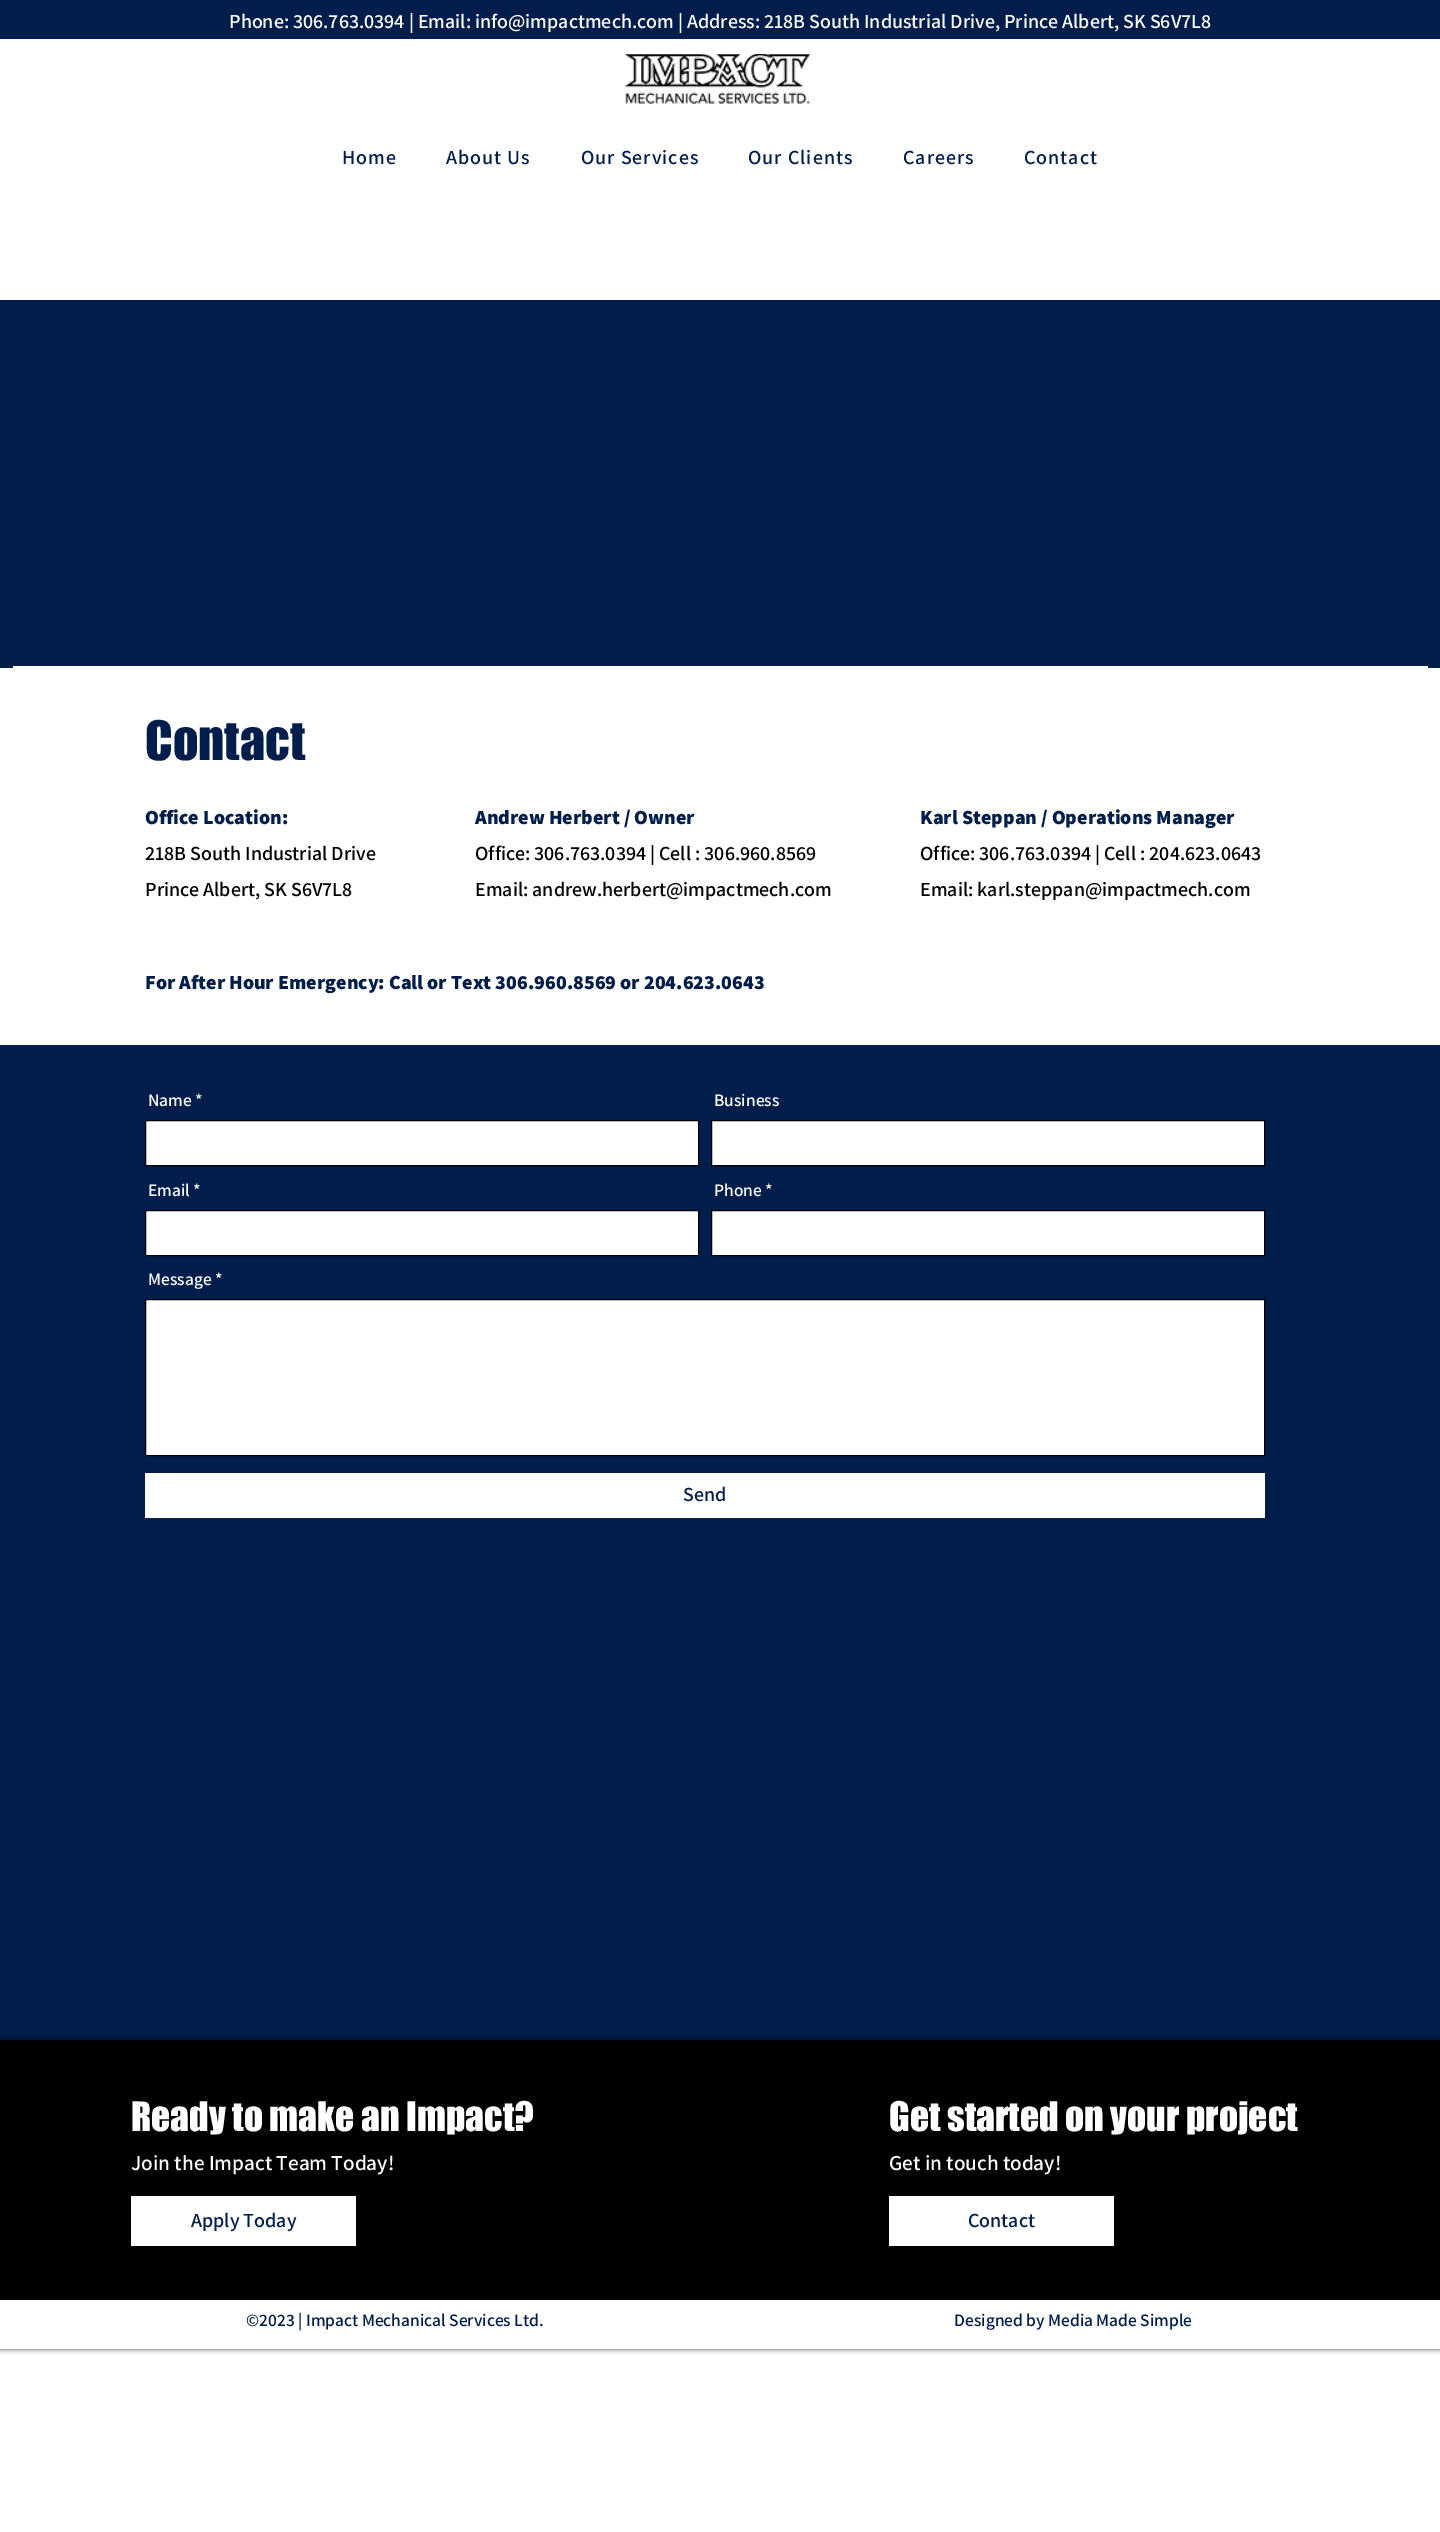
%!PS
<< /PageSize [1440 2532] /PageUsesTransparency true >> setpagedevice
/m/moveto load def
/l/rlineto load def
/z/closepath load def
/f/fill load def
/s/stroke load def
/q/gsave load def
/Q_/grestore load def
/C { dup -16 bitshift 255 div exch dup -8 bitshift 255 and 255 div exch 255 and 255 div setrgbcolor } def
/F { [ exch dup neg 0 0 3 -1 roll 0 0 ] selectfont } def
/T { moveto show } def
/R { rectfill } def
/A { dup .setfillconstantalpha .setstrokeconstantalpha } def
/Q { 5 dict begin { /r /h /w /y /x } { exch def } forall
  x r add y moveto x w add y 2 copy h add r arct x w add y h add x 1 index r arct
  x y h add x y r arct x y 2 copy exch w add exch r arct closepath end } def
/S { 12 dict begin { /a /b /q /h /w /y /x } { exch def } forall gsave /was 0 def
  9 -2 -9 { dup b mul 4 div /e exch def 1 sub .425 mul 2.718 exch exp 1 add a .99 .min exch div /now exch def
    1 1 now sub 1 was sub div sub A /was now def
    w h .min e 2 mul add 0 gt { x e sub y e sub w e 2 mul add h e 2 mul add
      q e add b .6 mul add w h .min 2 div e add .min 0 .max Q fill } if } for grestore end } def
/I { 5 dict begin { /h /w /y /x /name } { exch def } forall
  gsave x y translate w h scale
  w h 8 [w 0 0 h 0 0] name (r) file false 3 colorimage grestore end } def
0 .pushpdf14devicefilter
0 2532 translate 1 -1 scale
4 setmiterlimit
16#FFFFFF C
0 0 1440 2532 R
16#001D4B C
0 0 1440 39 R
/Assistant-SemiBold 20 F
16#FFFFFF C
(Phone: 306.763.0394 | Email: info@impactmech.com | Address: 218B South Industrial Drive, Prince Albert, SK S6V7L8) 229 28 T
(1.rgb) 625 54 185 50 I
16#001D4B C
342 164 m 1 0 (Home) ashow
446 164 m 1 0 (About Us) ashow
581 164 m 1 0 (Our Services) ashow
748 164 m 1 0 (Our Clients) ashow
903 164 m 1 0 (Careers) ashow
1024 164 m 1 0 (Contact) ashow
0 300 1440 368 R
16#FFFFFF C
13 666 1415 2 R
/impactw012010-Regular 50 F
16#001D4B C
(Contact) 145 760 T
/Assistant-ExtraBold 20 F
(Office Location:) 145 824 T
/Assistant-SemiBold 20 F
16#000000 C
(218B South Industrial Drive) 145 860 T
(Prince Albert, SK S6V7L8) 145 896 T
/Assistant-ExtraBold 20 F
16#001D4B C
(Andrew Herbert / Owner) 475 824 T
/Assistant-SemiBold 20 F
16#000000 C
(Office: 306.763.0394 | Cell : 306.960.8569) 475 860 T
(Email: andrew.herbert@impactmech.com) 475 896 T
/Assistant-ExtraBold 20 F
16#001D4B C
(Karl Steppan / Operations Manager) 920 824 T
/Assistant-SemiBold 20 F
16#000000 C
(Office: 306.763.0394 | Cell : 204.623.0643) 920 860 T
(Email: karl.steppan@impactmech.com) 920 896 T
/Assistant-ExtraBold 20 F
16#001D4B C
(For After Hour Emergency: Call or Text 306.960.8569 or 204.623.0643) 145 989 T
0 1045 1440 995 R
/Assistant-SemiBold 17.5 F
16#FFFFFF C
(Name *) 148 1106 T
145.5 1120.5 m 553 0 l 0 45 l -553 0 l z q f Q_
16#000000 C
s
16#FFFFFF C
(Business) 714 1106 T
711.5 1120.5 m 553 0 l 0 45 l -553 0 l z q f Q_
16#000000 C
s
16#FFFFFF C
(Email *) 148 1196 T
145.5 1210.5 m 553 0 l 0 45 l -553 0 l z q f Q_
16#000000 C
s
16#FFFFFF C
(Phone *) 714 1196 T
711.5 1210.5 m 553 0 l 0 45 l -553 0 l z q f Q_
16#000000 C
s
16#FFFFFF C
(Message *) 148 1285 T
145.5 1299.5 m 1119 0 l 0 156 l -1119 0 l z q f Q_
16#000000 C
s
16#FFFFFF C
145 1473 1120 45 R
/Assistant-SemiBold 20 F
16#001D4B C
(Send) 683 1501 T
16#000000 C
0 2040 1440 309 0 3 .7 S
16#FFFFFF C
0 2300 1440 49 R
16#000000 C
0 2040 1440 260 R
/impactw012010-Regular 37.5 F
16#FFFFFF C
(Ready to make an Impact?) 131 2131 T
/Assistant-SemiBold 21.25 F
(Join the Impact Team Today!) 131 2170 T
131 2196 225 50 R
/Assistant-SemiBold 20 F
16#001D4B C
(Apply Today) 191 2227 T
/impactw012010-Regular 37.5 F
16#FFFFFF C
(Get started on your project) 889 2131 T
/Assistant-SemiBold 21.25 F
(Get in touch today!) 889 2170 T
889 2196 225 50 R
/Assistant-SemiBold 20 F
16#001D4B C
(Contact) 968 2227 T
/Assistant-SemiBold 17.5 F
(©2023 | Impact Mechanical Services Ltd.) 246 2326 T
(Designed by Media Made Simple) 954 2326 T
.poppdf14devicefilter showpage
